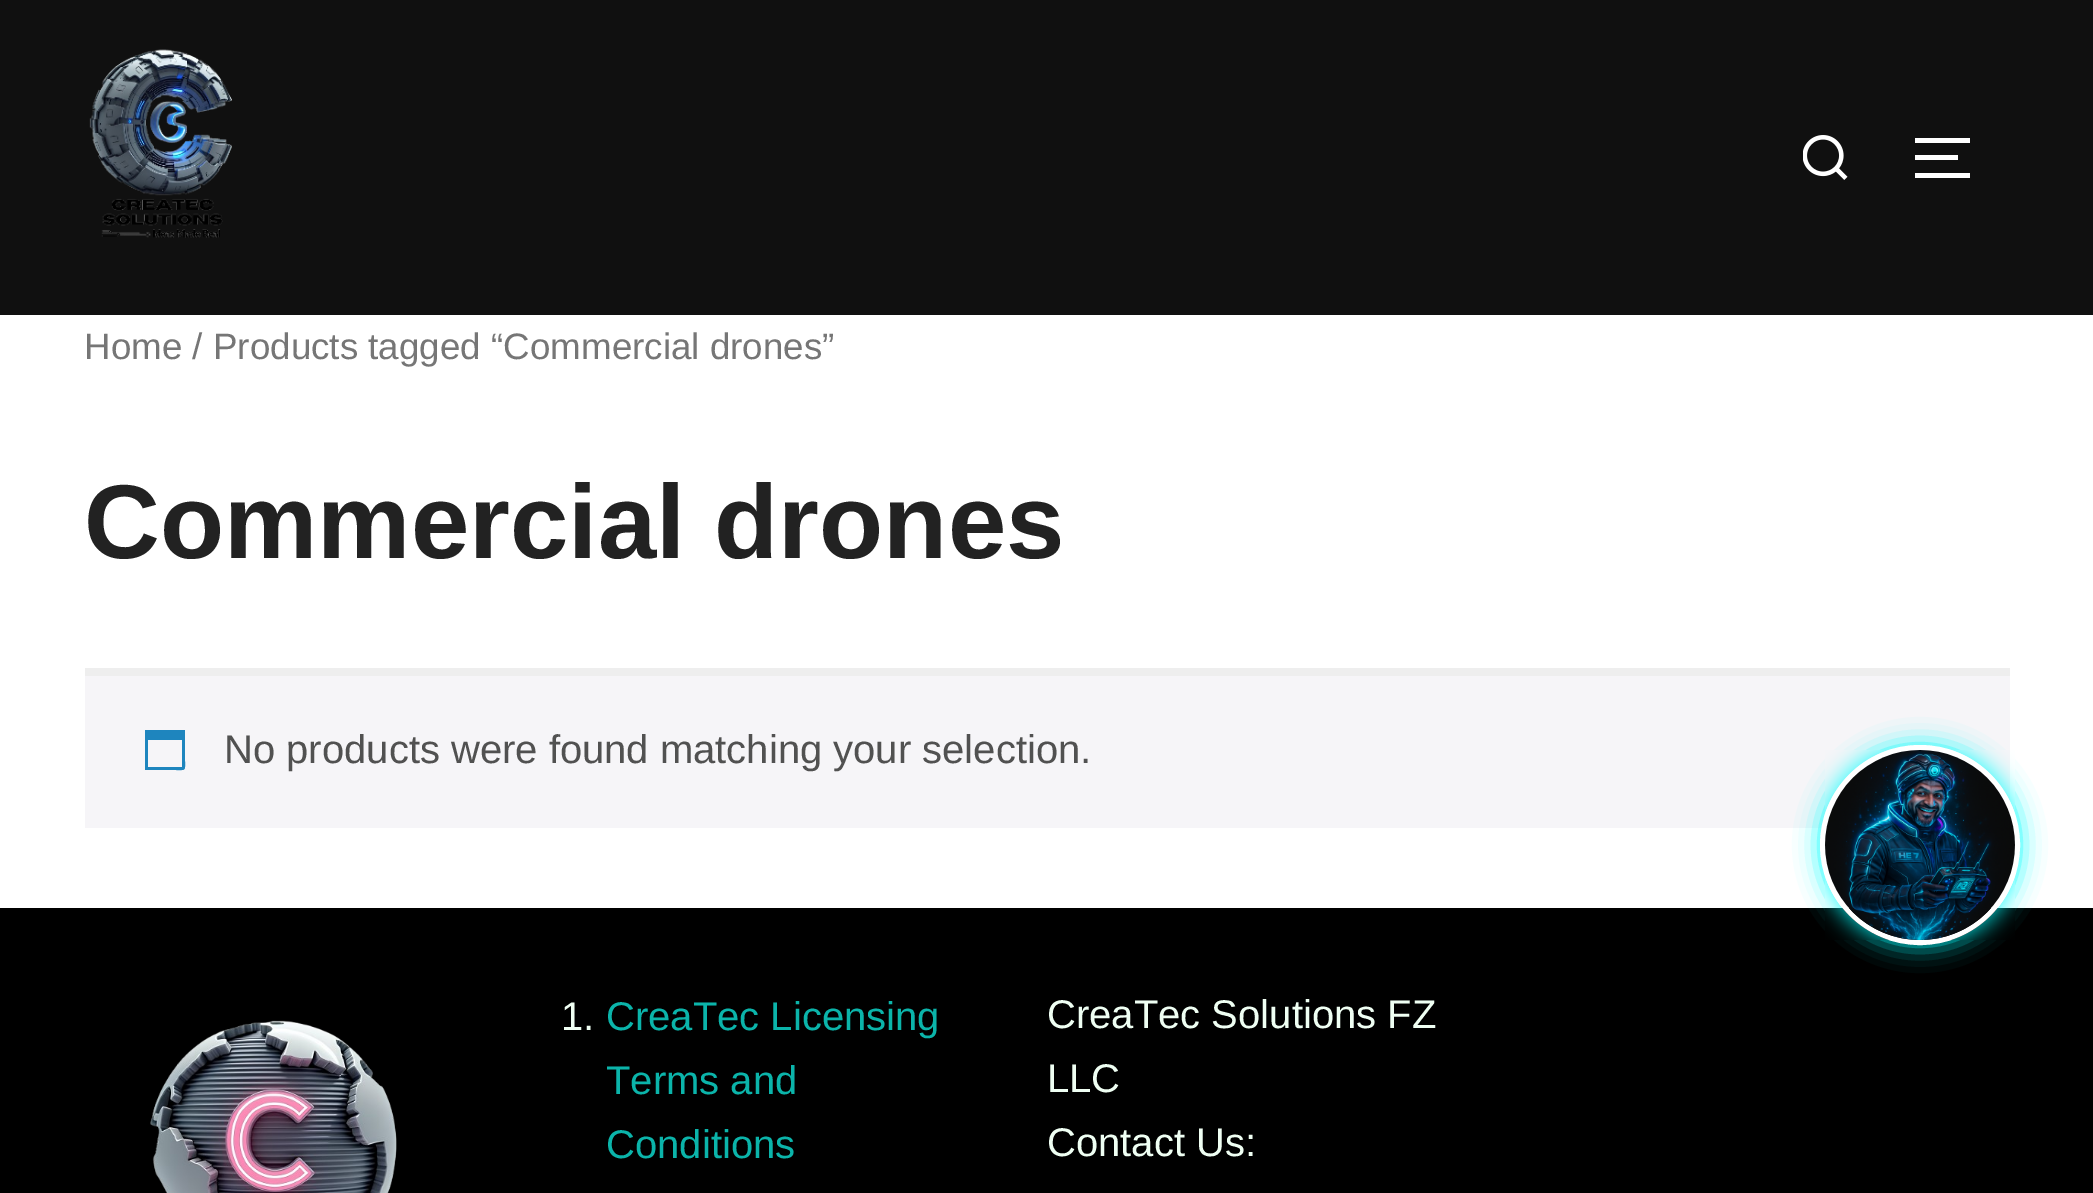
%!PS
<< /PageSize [2093 1193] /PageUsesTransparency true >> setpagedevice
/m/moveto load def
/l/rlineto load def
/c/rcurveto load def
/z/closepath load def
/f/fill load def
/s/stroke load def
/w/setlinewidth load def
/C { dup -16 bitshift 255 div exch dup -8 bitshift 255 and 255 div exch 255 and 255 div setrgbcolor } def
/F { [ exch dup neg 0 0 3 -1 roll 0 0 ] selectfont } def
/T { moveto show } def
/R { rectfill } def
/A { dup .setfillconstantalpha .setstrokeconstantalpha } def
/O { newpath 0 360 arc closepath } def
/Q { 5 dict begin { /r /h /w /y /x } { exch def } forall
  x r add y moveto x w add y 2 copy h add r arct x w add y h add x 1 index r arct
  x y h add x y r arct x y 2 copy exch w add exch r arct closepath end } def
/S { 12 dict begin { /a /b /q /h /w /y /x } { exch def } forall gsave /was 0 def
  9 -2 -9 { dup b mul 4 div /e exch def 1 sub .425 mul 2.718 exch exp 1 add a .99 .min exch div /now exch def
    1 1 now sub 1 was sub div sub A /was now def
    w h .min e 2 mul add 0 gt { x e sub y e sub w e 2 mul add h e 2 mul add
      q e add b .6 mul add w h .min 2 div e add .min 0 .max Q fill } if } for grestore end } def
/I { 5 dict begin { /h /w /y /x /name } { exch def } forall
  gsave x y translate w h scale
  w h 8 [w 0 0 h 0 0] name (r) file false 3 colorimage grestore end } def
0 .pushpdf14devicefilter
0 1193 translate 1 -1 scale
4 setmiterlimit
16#FFFFFF C
0 0 2093 1193 R
16#101010 C
0 0 2093 315 R
(1.rgb) 89 49 143 189 I
(2.rgb) 1803 135 45 45 I
16#FFFFFF C
1915 138 55 5 R
1915 155 43 5 R
1915 173 55 5 R
/LiberationSans-Regular 36.8 F
16#767676 C
(Home / Products tagged “Commercial drones”) 84 359 T
/LiberationSans-Bold 105 F
16#222222 C
(Commercial drones) 84 558 T
16#F6F5F8 C
85 676 1925 152 R
16#EEEEEE C
85 668 1925 8 R
16#1E85BE C
182 740 m -34 0 l 0 27 l 34 0 l z 185 730 m 0 31 l 0 10 1 9 -9 9 c -31 0 l 0 -40 l z f
/LiberationSans-Regular 40 F
16#515151 C
(No products were found matching your selection.) 224 763 T
16#000000 C
0 908 2093 285 R
(3.rgb) 150 1020 247 173 I
16#EFFFF3 C
(1.) 561 1030 T
16#0BB4AA C
(CreaTec Licensing) 606 1030 T
(Terms and) 606 1094 T
(Conditions) 606 1158 T
16#EFFFF3 C
(CreaTec Solutions FZ) 1047 1028 T
(LLC) 1047 1092 T
(Contact Us:) 1047 1156 T
16#00FFFF C
1820 745 200 200 100 12.5 1 S
16#FFFFFF C
5 w
1920 845 97.5 O s
(4.rgb) 1825 750 190 190 I
.poppdf14devicefilter showpage
